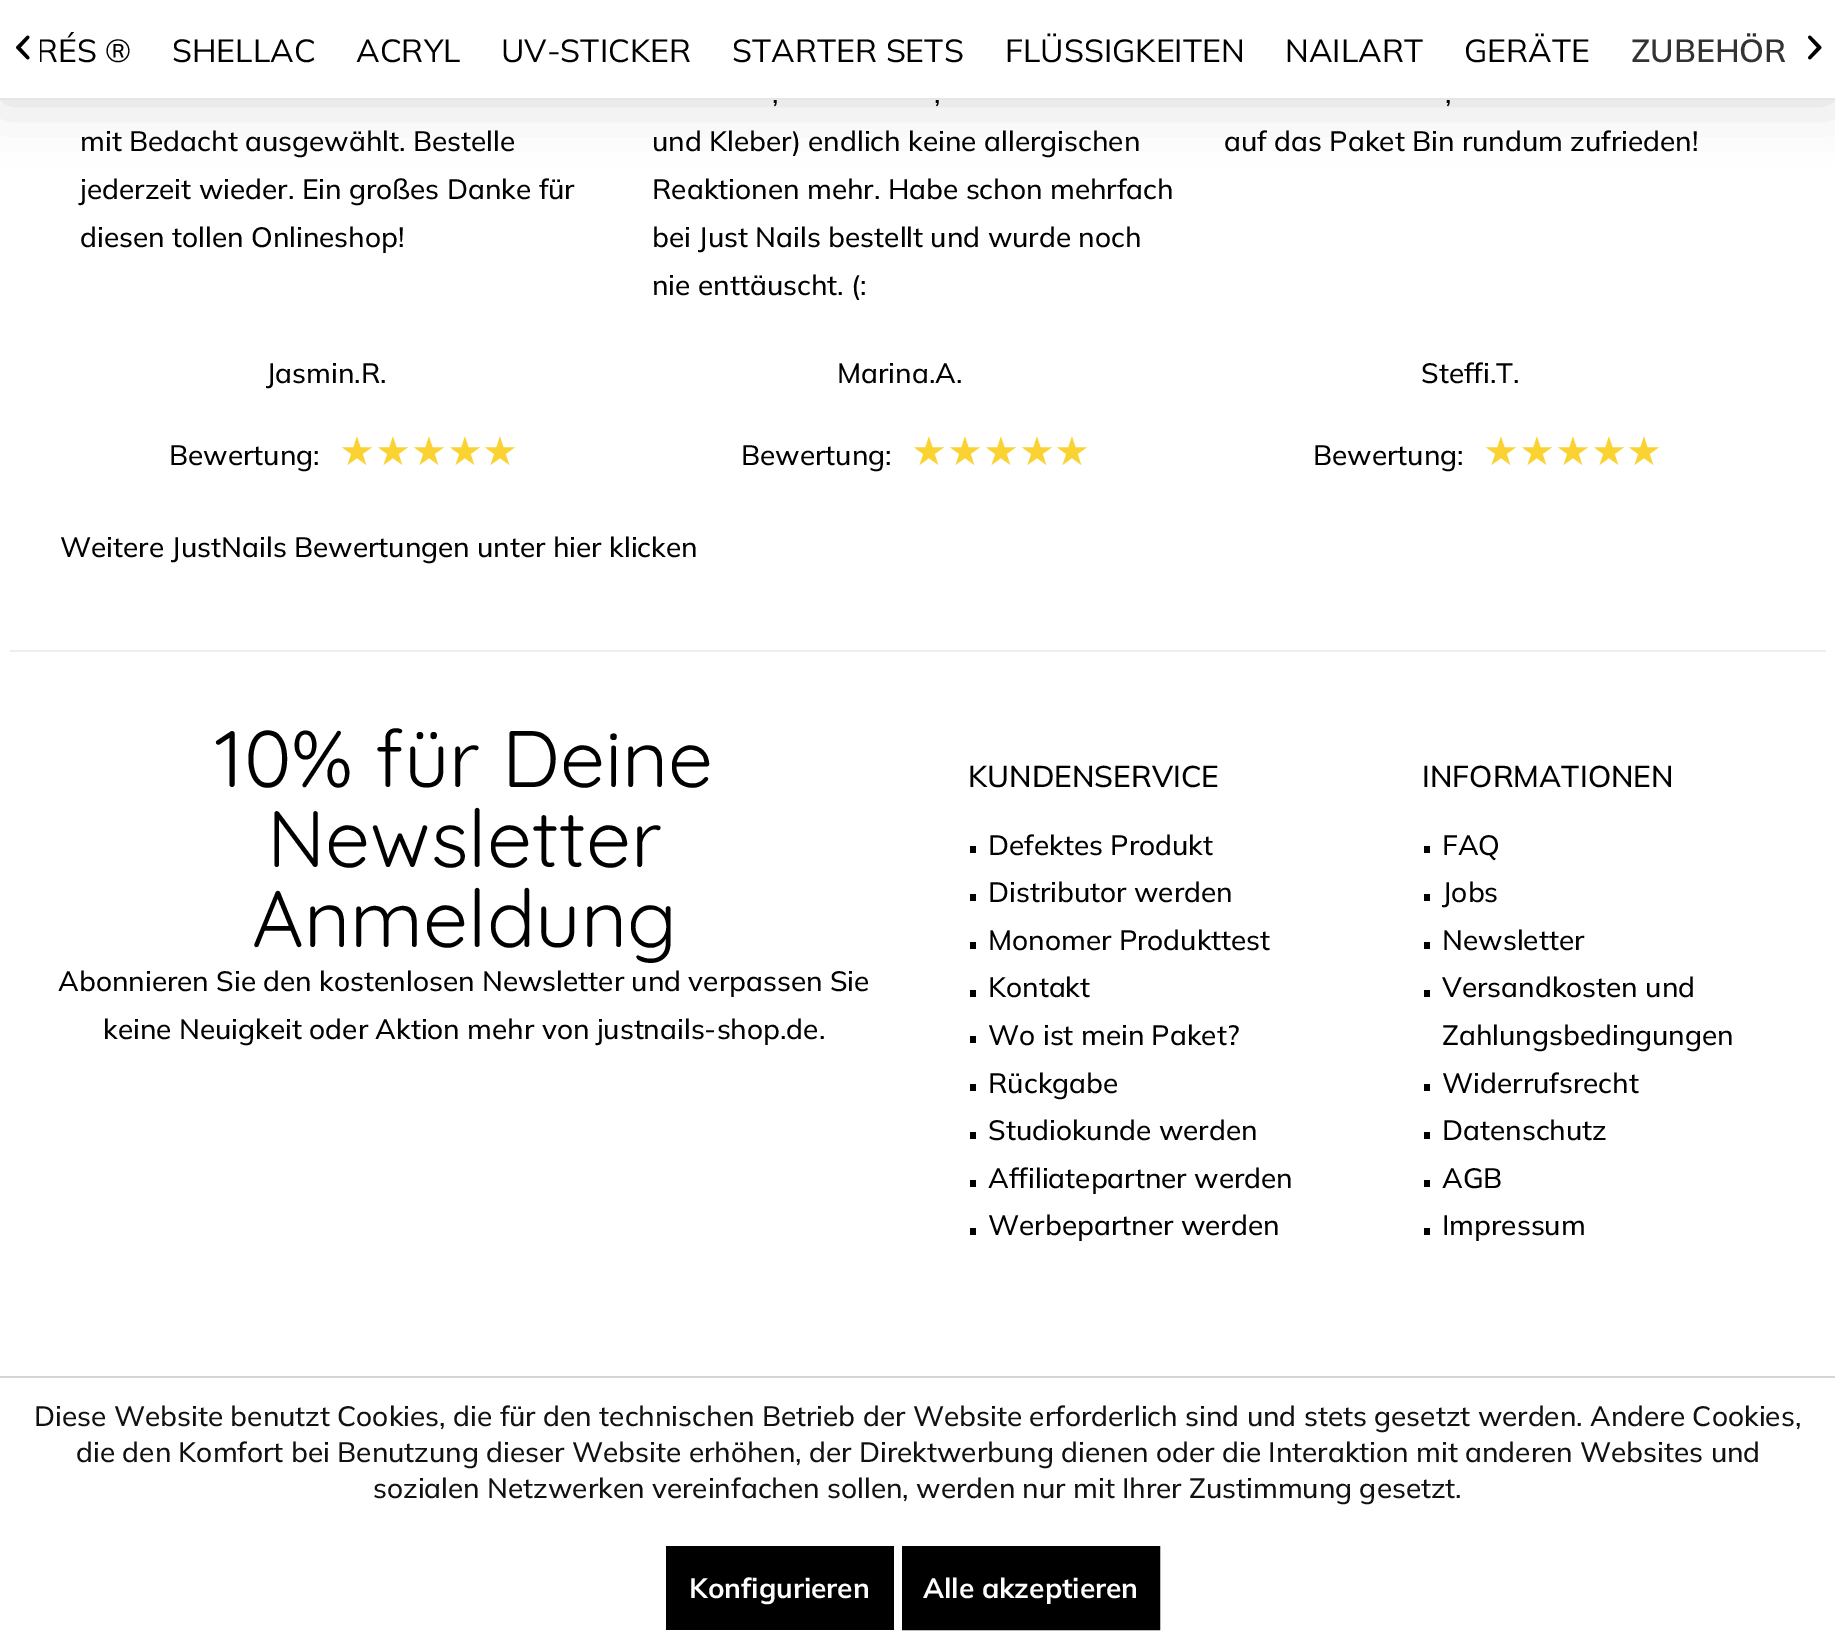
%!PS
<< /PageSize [1835 1649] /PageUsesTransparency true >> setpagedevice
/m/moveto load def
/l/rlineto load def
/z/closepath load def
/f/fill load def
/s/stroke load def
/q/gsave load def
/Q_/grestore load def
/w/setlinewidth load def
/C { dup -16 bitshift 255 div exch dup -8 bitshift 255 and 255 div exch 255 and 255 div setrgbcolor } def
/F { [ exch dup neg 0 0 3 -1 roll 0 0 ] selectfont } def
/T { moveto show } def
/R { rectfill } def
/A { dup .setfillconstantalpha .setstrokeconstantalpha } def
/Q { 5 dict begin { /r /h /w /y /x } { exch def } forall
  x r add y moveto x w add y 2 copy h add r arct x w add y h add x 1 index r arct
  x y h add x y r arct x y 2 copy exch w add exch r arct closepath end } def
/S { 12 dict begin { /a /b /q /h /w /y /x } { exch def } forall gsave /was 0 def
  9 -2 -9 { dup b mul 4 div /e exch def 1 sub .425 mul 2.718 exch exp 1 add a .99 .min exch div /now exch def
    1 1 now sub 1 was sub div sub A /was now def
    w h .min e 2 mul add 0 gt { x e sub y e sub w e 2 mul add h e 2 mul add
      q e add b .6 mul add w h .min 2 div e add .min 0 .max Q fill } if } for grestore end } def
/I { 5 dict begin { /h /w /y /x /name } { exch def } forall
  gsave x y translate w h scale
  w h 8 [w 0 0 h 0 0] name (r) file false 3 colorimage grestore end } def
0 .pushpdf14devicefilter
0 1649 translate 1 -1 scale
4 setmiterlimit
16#FFFFFF C
0 0 1835 1649 R
16#000000 C
0 0 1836 100 0 30 .15 S
16#FFFFFF C
0 0 1835 98 R
/Mulish-ExtraLight 28 F
16#000000 C
(,) 772 103 T
(,) 934 103 T
(,) 1445 103 T
16#E6E6E6 C
0 98 1835 2 R
(1.rgb) 16 35 14 25 I
q
40 20 104 62 rectclip
/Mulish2-ExtraLight 32 F
16#000000 C
(RÉS ®) 36 62 T
Q_
/Mulish2-ExtraLight 32 F
16#000000 C
(SHELLAC) 172 62 T
(ACRYL) 356 62 T
(UV-STICKER) 501 62 T
(STARTER SETS) 732 62 T
(FLÜSSIGKEITEN) 1005 62 T
(NAILART) 1285 62 T
(GERÄTE) 1464 62 T
/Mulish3-ExtraLight 32 F
16#333333 C
(ZUBEHÖR) 1631 62 T
(2.rgb) 1808 35 14 25 I
16#EEEEEE C
10 650 1816 2 R
/Mulish-ExtraLight 28 F
16#000000 C
(mit Bedacht ausgewählt. Bestelle) 80 151 T
(jederzeit wieder. Ein großes Danke für) 80 199 T
(diesen tollen Onlineshop!) 80 247 T
(und Kleber\) endlich keine allergischen) 652 151 T
(Reaktionen mehr. Habe schon mehrfach) 652 199 T
(bei Just Nails bestellt und wurde noch) 652 247 T
(nie enttäuscht. \(:) 652 295 T
(auf das Paket Bin rundum zufrieden!) 1224 151 T
(Jasmin.R.) 266 383 T
(Marina.A.) 837 383 T
(Steffi.T.) 1421 383 T
(Bewertung:) 169 465 T
/DejaVuSans-Regular 40 F
16#FAD232 C
(★★★★★) 339 465 T
/Mulish-ExtraLight 28 F
16#000000 C
(Bewertung:) 741 465 T
/DejaVuSans-Regular 40 F
16#FAD232 C
(★★★★★) 911 465 T
/Mulish-ExtraLight 28 F
16#000000 C
(Bewertung:) 1313 465 T
/DejaVuSans-Regular 40 F
16#FAD232 C
(★★★★★) 1483 465 T
/Mulish-ExtraLight 28 F
16#000000 C
(Weitere JustNails Bewertungen unter hier klicken) 60 557 T
/Quicksand-Light 80 F
(10% für Deine) 214 787 T
(Newsletter) 267 867 T
(Anmeldung) 252 947 T
/Mulish-ExtraLight 28 F
(Abonnieren Sie den kostenlosen Newsletter und verpassen Sie) 58 991 T
(keine Neuigkeit oder Aktion mehr von justnails-shop.de.) 103 1039 T
/Mulish-ExtraLight 30 F
(KUNDENSERVICE) 968 787 T
970 846 6 7 R
/Mulish-ExtraLight 28 F
(Defektes Produkt) 988 855 T
970 894 6 7 R
(Distributor werden) 988 902 T
970 942 6 7 R
(Monomer Produkttest) 988 950 T
970 990 6 7 R
(Kontakt) 988 997 T
970 1036 6 7 R
(Wo ist mein Paket?) 988 1045 T
970 1084 6 7 R
(Rückgabe) 988 1093 T
970 1132 6 7 R
(Studiokunde werden) 988 1140 T
970 1180 6 7 R
(Affiliatepartner werden) 988 1188 T
970 1228 6 7 R
(Werbepartner werden) 988 1235 T
/Mulish-ExtraLight 30 F
(INFORMATIONEN) 1422 787 T
1424 846 6 7 R
/Mulish-ExtraLight 28 F
(FAQ) 1442 855 T
1424 894 6 7 R
(Jobs) 1442 902 T
1424 942 6 7 R
(Newsletter) 1442 950 T
1424 990 6 7 R
(Versandkosten und) 1442 997 T
(Zahlungsbedingungen) 1442 1045 T
1424 1084 6 7 R
(Widerrufsrecht) 1442 1093 T
1424 1132 6 7 R
(Datenschutz) 1442 1140 T
1424 1180 6 7 R
(AGB) 1442 1188 T
1424 1228 6 7 R
(Impressum) 1442 1235 T
16#D6D6D6 C
0 1376 1835 2 R
16#111111 C
(Diese Website benutzt Cookies, die für den technischen Betrieb der Website erforderlich sind und stets gesetzt werden. Andere Cookies,) 34 1426 T
(die den Komfort bei Benutzung dieser Website erhöhen, der Direktwerbung dienen oder die Interaktion mit anderen Websites und) 76 1462 T
(sozialen Netzwerken vereinfachen sollen, werden nur mit Ihrer Zustimmung gesetzt.) 373 1498 T
16#000000 C
666 1546 228 84 R
/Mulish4-ExtraLight 28 F
16#FFFFFF C
(Konfigurieren) 689 1598 T
16#000000 C
903 1547 m 256 0 l 0 82 l -256 0 l z q f Q_
2 w
s
16#FFFFFF C
(Alle akzeptieren) 923 1598 T
.poppdf14devicefilter showpage
